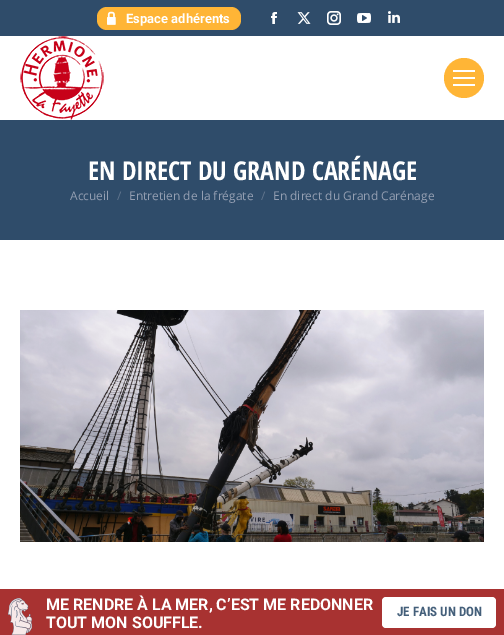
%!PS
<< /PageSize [504 635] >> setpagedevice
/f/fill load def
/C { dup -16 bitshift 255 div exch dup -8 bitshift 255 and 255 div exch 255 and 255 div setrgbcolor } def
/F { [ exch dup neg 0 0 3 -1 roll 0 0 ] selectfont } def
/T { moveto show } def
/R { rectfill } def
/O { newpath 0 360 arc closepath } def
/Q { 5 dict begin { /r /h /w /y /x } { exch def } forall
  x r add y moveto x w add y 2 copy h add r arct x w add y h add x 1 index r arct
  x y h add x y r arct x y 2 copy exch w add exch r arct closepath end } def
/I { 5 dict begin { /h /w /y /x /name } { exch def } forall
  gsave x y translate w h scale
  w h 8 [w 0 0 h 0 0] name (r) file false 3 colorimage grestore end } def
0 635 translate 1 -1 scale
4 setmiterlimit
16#FFFFFF C
0 0 504 635 R
16#2F4C6A C
0 0 504 36 R
16#FFB536 C
97 7 144 23 10 Q f
(1.rgb) 107 11 9 14 I
/Roboto-Bold 13 F
16#FFFFFF C
(Espace adhérents) 126 23 T
(2.rgb) 271 12 6 12 I
(3.rgb) 297 12 14 12 I
(4.rgb) 327 11 14 14 I
(5.rgb) 357 13 14 10 I
(6.rgb) 388 11 12 12 I
(7.rgb) 20 36 84 84 I
16#FFB536 C
464 78 20 O f
16#FFFFFF C
453 70 22 2 R
453 77 22 2 R
453 84 22 2 R
16#2F4C6A C
0 120 504 120 R
/OpenSansCondensed-Bold 26 F
16#FFFFFF C
(EN DIRECT DU GRAND CARÉNAGE) 88 180 T
/OpenSans-Regular 12 F
16#949FB2 C
(Accueil) 70 200 T
16#62768E C
(/) 117 200 T
16#949FB2 C
(Entretien de la frégate) 129 200 T
16#62768E C
(/) 261 200 T
16#949FB2 C
(En direct du Grand Carénage) 273 200 T
(8.rgb) 20 310 464 232 I
16#A83231 C
0 589 504 46 R
(9.rgb) 8 598 24 37 I
/Roboto-Bold 16 F
16#FFFFFF C
(ME RENDRE À LA MER, C’EST ME REDONNER) 46 610 T
(TOUT MON SOUFFLE.) 46 628 T
382 597 114 31 4 Q f
/RobotoCondensed-Bold 13 F
16#445F7A C
(JE FAIS UN DON) 397 616 T
showpage
